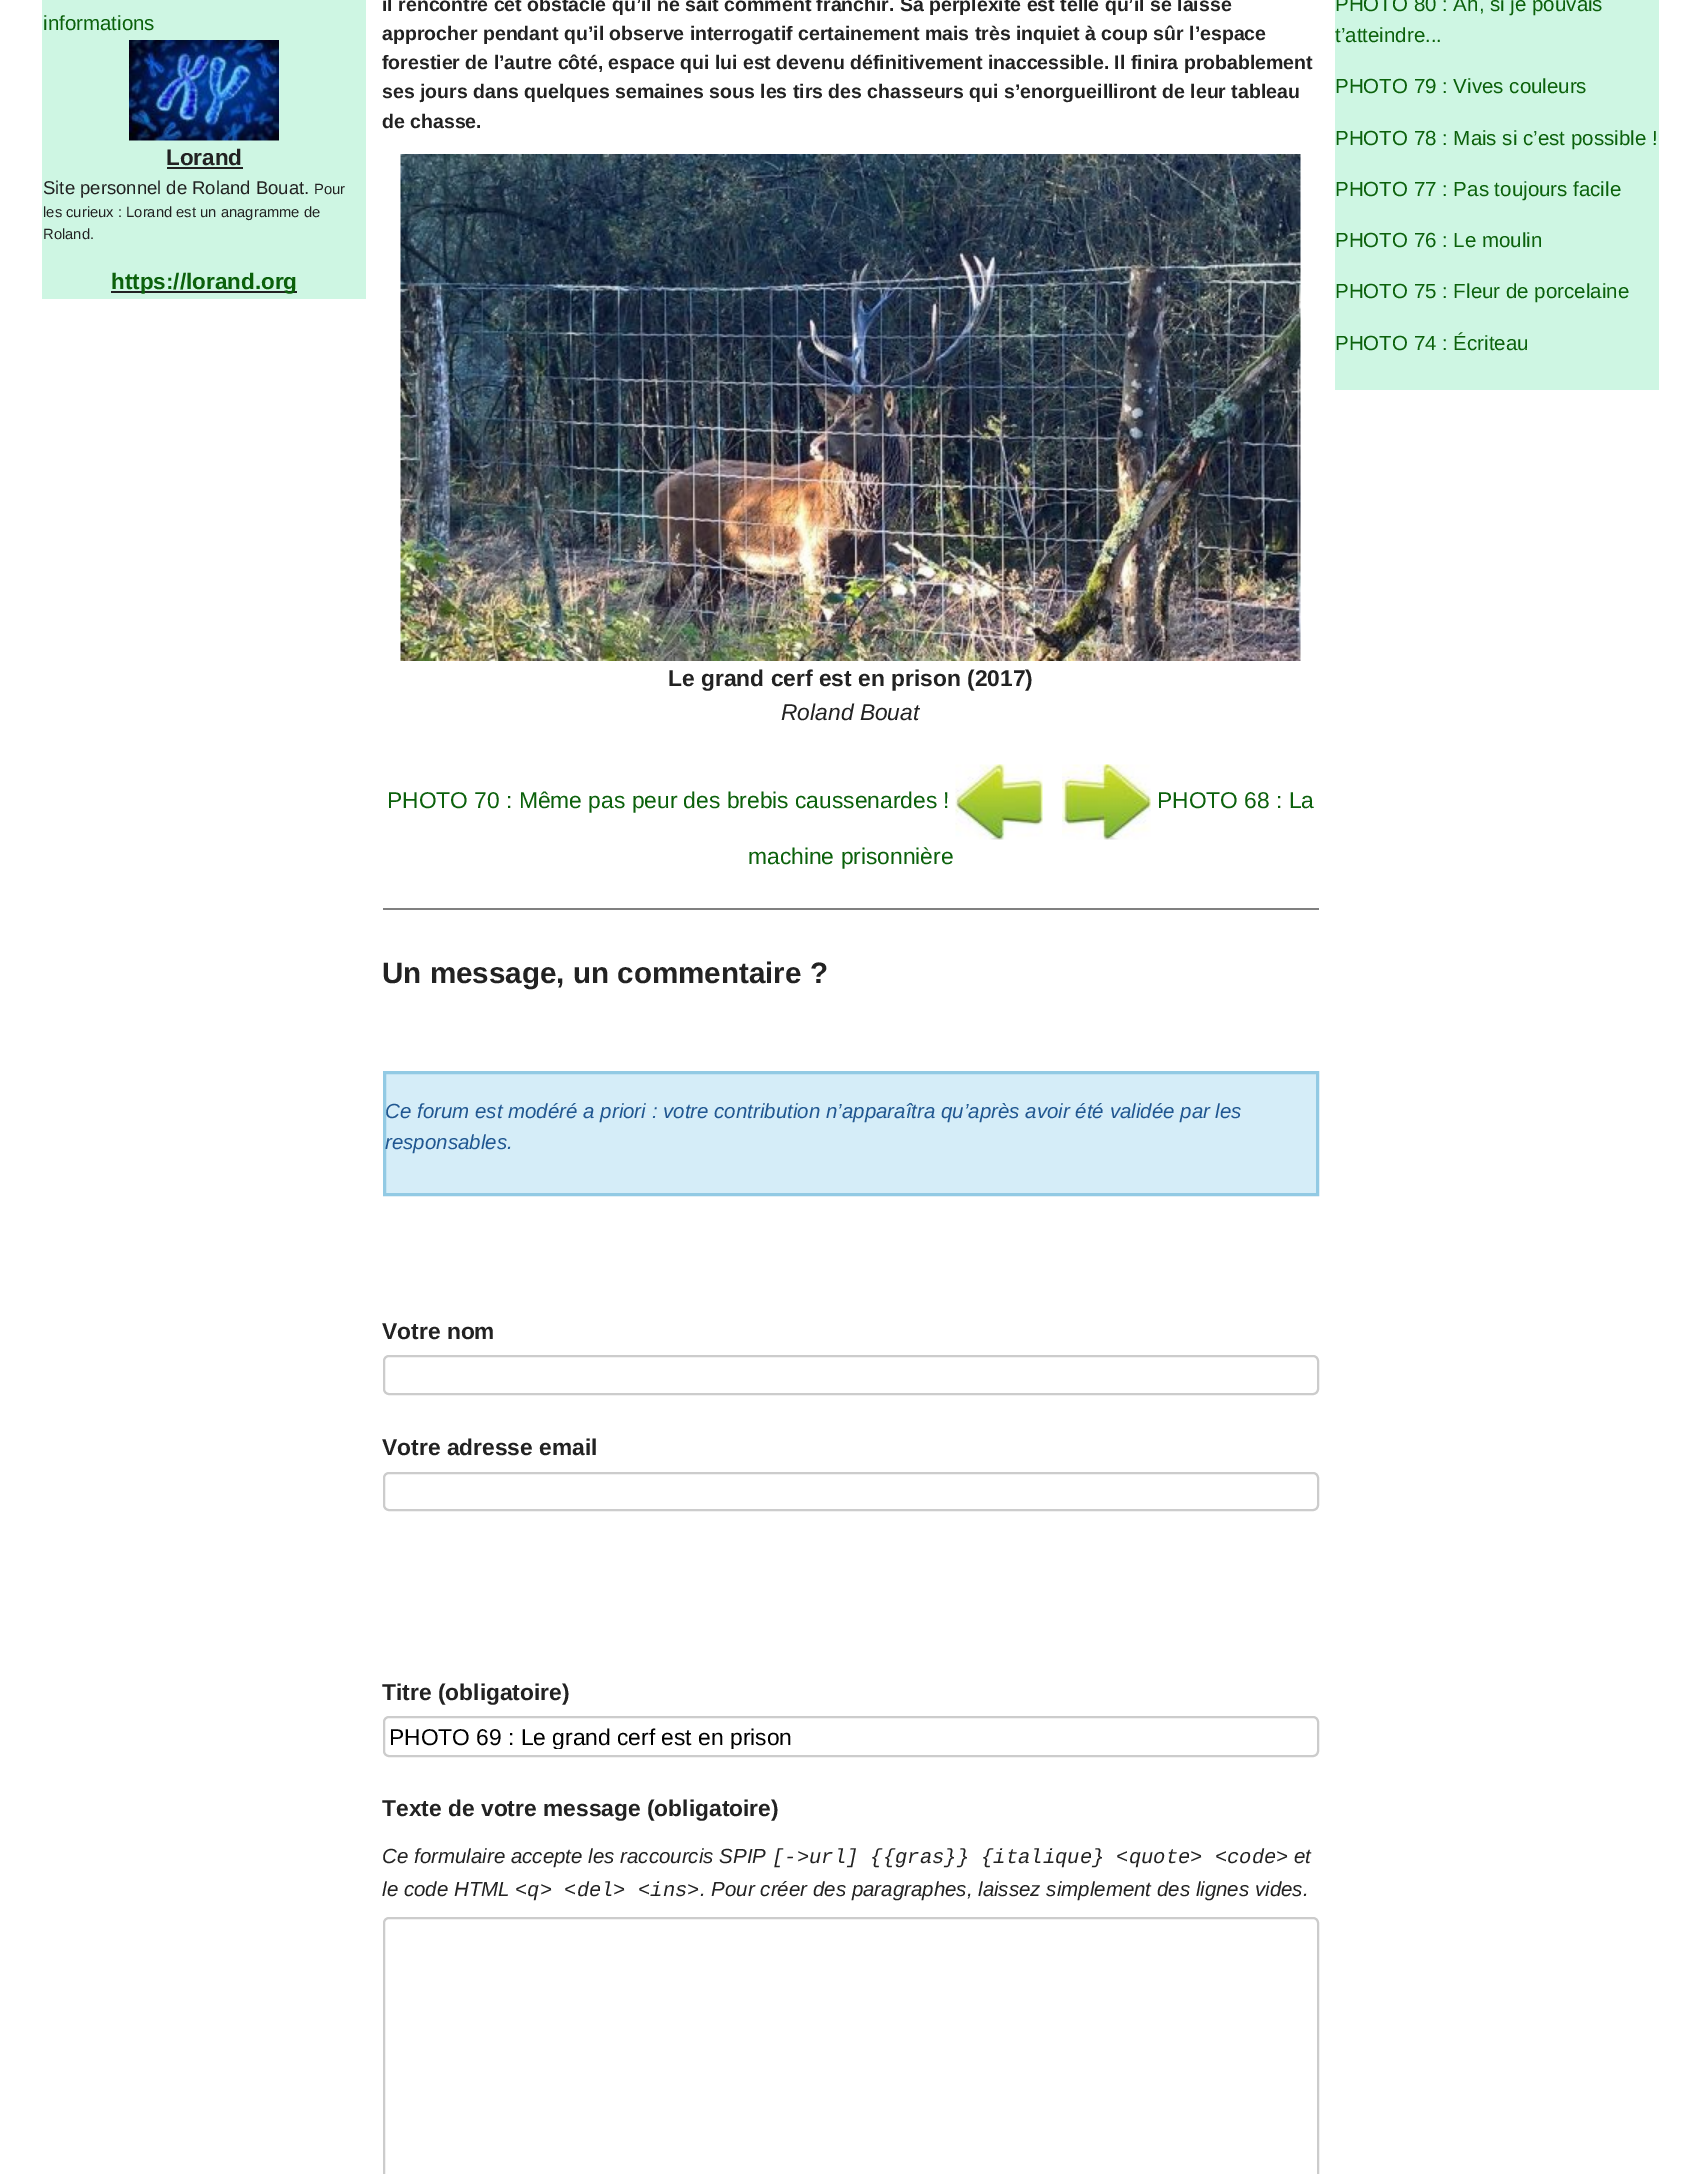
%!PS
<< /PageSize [1700 2174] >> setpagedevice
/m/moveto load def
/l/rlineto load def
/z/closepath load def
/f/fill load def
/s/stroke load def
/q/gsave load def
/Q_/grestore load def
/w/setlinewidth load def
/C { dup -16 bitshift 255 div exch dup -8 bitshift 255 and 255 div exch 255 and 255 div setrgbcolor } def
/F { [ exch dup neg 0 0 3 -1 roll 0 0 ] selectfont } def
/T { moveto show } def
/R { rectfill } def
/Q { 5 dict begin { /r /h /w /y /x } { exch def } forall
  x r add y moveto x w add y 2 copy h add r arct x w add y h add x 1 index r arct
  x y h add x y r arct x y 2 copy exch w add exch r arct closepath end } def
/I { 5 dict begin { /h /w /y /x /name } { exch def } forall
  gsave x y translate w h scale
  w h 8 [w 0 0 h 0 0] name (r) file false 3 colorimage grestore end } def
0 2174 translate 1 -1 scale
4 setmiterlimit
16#FFFFFF C
0 0 1700 2174 R
16#CEF6E3 C
42 0 324 299 R
/LiberationSans-Regular 20.5 F
16#0B610B C
(informations) 43 30 T
(1.rgb) 129 40 150 101 I
/LiberationSans-Bold 22.5 F
16#222222 C
(Lorand) 166 165 T
167 167 76 2 R
/LiberationSans-Regular 18.5 F
(Site personnel de Roland Bouat.) 43 194 T
/LiberationSans-Regular 14.8 F
(Pour) 314 194 T
(les curieux : Lorand est un anagramme de) 43 217 T
(Roland.) 43 239 T
111 291 186 2 R
/LiberationSans-Bold 22.5 F
16#0B610B C
(https://lorand.org) 111 289 T
/LiberationSans-Bold 19.5 F
16#222222 C
(il rencontre cet obstacle qu’il ne sait comment franchir. Sa perplexité est telle qu’il se laisse) 382 11 T
(approcher pendant qu’il observe interrogatif certainement mais très inquiet à coup sûr l’espace) 382 40 T
(forestier de l’autre côté, espace qui lui est devenu définitivement inaccessible. Il finira probablement) 382 69 T
(ses jours dans quelques semaines sous les tirs des chasseurs qui s’enorgueilliront de leur tableau) 382 98 T
(de chasse.) 382 128 T
(2.rgb) 400 154 901 507 I
/LiberationSans-Bold 22.8 F
(Le grand cerf est en prison \(2017\)) 668 686 T
/LiberationSans-Italic 22.8 F
(Roland Bouat) 781 720 T
/LiberationSans-Regular 22.8 F
16#0B610B C
(PHOTO 70 : Même pas peur des brebis caussenardes !) 387 808 T
(3.rgb) 955 764 88 76 I
(4.rgb) 1062 764 89 76 I
(PHOTO 68 : La) 1157 808 T
(machine prisonnière) 748 864 T
16#808080 C
383 908 936 2 R
/LiberationSans-Bold 29.6 F
16#222222 C
(Un message, un commentaire ?) 382 983 T
16#D5EDF8 C
384.5 1072.5 m 933 0 l 0 122 l -933 0 l z q f Q_
16#92CAE4 C
3 w
s
/LiberationSans-Italic 20.5 F
16#205791 C
(Ce forum est modéré a priori : votre contribution n’apparaîtra qu’après avoir été validée par les) 385 1118 T
(responsables.) 385 1149 T
/LiberationSans-Bold 22.8 F
16#222222 C
(Votre nom) 382 1339 T
16#CCCCCC C
2 w
384 1356 934 38 5 Q s
16#222222 C
(Votre adresse email) 382 1455 T
16#CCCCCC C
384 1473 934 37 5 Q s
16#222222 C
(Titre \(obligatoire\)) 382 1700 T
16#CCCCCC C
384 1717 934 39 5 Q s
q
389 1724 924 25 rectclip
/LiberationSans-Regular 22.8 F
16#000000 C
(PHOTO 69 : Le grand cerf est en prison) 389 1745 T
Q_
16#222222 C
(Texte de votre message \(obligatoire\)) 382 1816 T
/LiberationSans-Italic 20.5 F
(Ce formulaire accepte les raccourcis SPIP) 382 1863 T
/LiberationMono-Italic 20.5 F
([->url] {{gras}} {italique} <quote> <code>) 772 1863 T
/LiberationSans-Italic 20.5 F
(et) 1294 1863 T
(le code HTML) 382 1896 T
/LiberationMono-Italic 20.5 F
(<q> <del> <ins>) 515 1896 T
/LiberationSans-Italic 20.5 F
(. Pour créer des paragraphes, laissez simplement des lignes vides.) 700 1896 T
16#CCCCCC C
384 1918 934 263 5 Q s
16#CEF6E3 C
1335 0 324 390 R
/LiberationSans-Regular 20.5 F
16#0B610B C
(PHOTO 80 : Ah, si je pouvais) 1335 11 T
(t’atteindre...) 1335 42 T
(PHOTO 79 : Vives couleurs) 1335 93 T
(PHOTO 78 : Mais si c’est possible !) 1335 145 T
(PHOTO 77 : Pas toujours facile) 1335 196 T
(PHOTO 76 : Le moulin) 1335 247 T
(PHOTO 75 : Fleur de porcelaine) 1335 298 T
(PHOTO 74 : Écriteau) 1335 350 T
showpage
